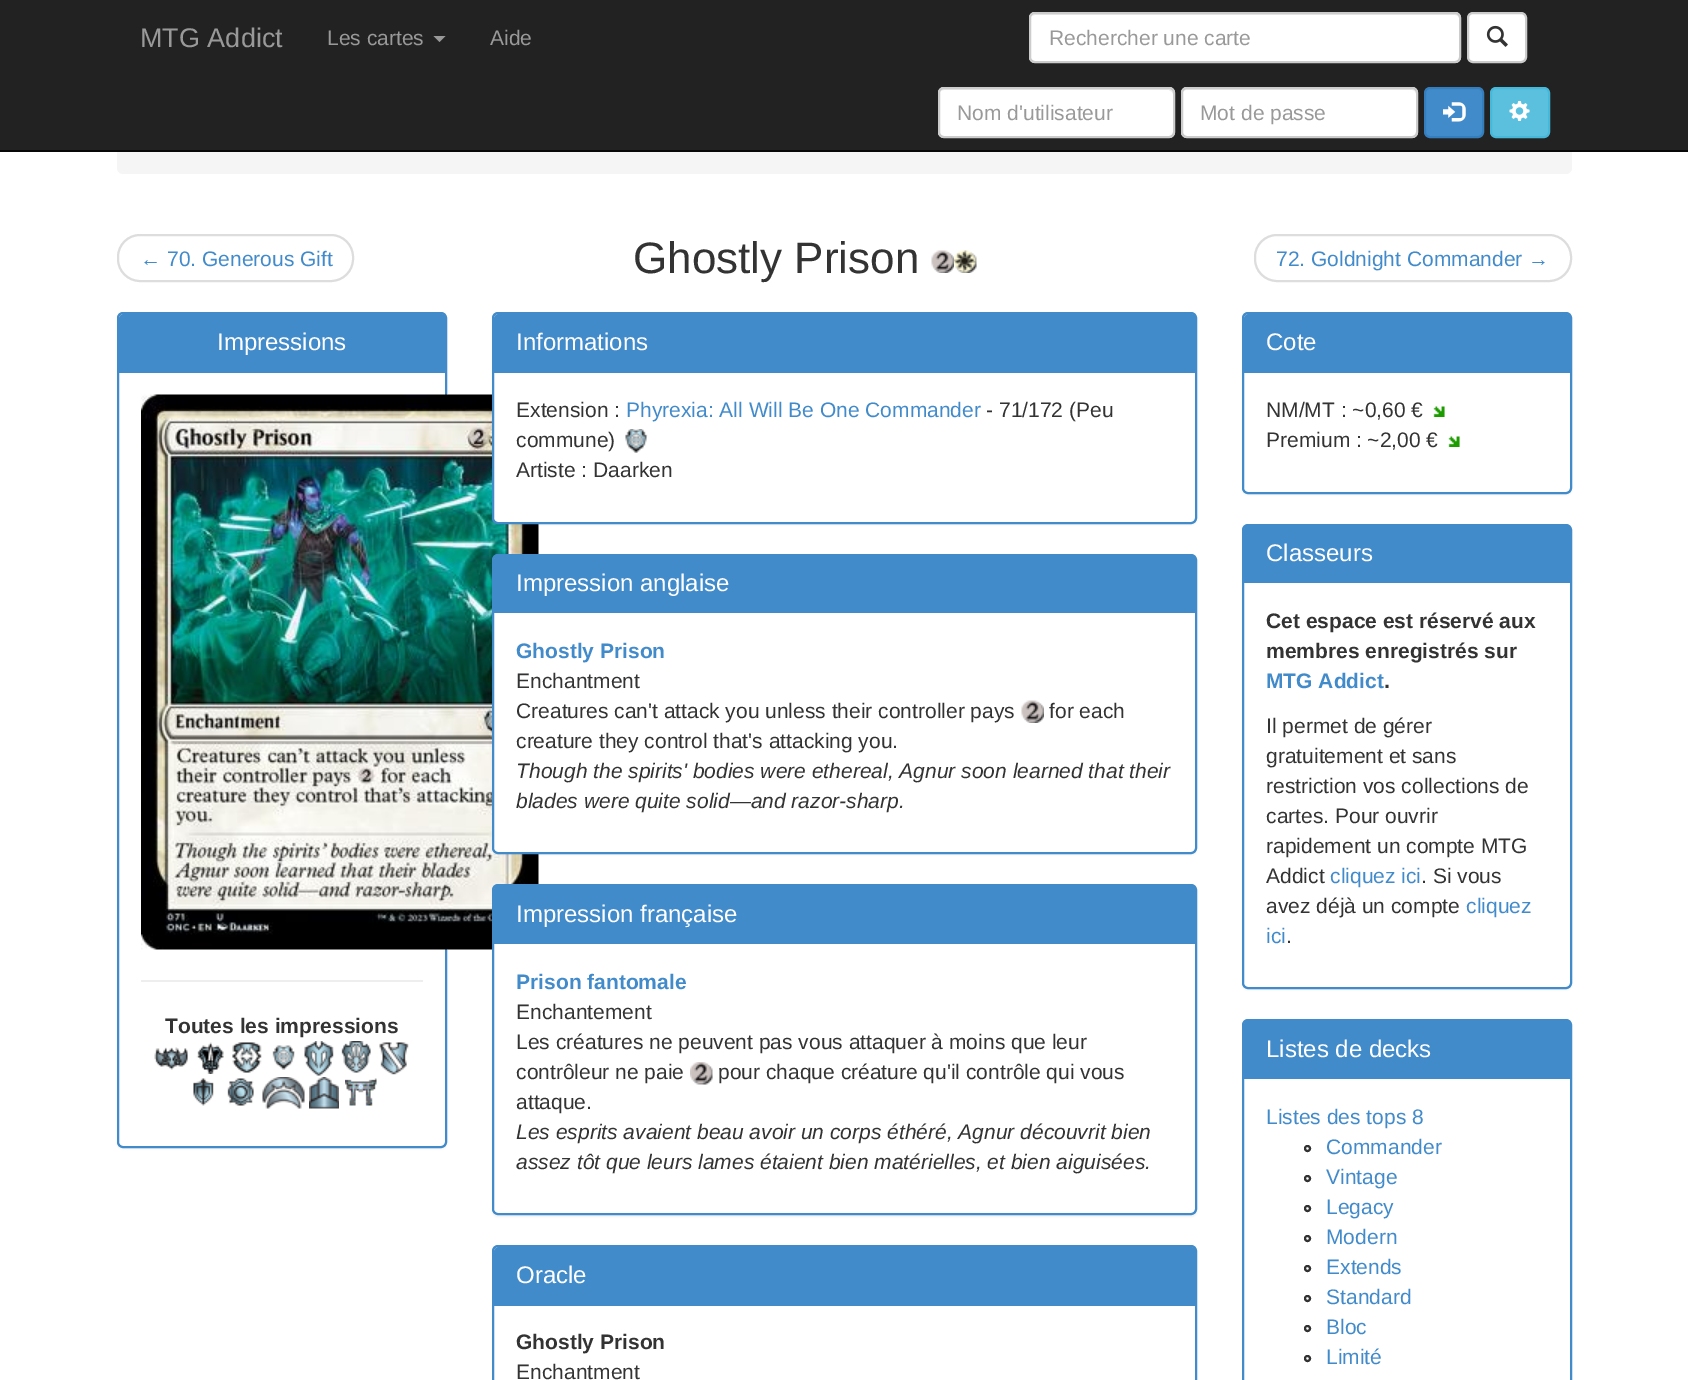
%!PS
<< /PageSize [1688 1380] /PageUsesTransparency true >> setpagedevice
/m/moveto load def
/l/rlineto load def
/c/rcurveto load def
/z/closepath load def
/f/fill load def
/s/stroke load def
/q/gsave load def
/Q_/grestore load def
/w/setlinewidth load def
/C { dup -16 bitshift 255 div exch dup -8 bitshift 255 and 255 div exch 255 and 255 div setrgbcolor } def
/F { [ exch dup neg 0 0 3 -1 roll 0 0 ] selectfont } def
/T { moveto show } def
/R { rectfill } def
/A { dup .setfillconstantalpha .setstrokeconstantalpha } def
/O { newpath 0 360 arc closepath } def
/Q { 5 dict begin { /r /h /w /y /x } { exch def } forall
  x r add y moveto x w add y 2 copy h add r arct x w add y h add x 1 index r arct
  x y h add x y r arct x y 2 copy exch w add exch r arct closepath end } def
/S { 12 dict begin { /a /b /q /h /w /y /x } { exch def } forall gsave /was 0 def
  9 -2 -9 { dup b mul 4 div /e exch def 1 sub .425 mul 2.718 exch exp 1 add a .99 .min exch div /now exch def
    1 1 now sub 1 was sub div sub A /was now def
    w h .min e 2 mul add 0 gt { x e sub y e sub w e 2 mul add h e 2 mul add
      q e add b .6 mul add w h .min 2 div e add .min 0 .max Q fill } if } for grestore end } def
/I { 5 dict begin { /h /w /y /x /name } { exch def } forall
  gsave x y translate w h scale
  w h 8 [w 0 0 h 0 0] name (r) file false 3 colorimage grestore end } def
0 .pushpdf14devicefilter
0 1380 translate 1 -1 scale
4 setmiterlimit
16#FFFFFF C
0 0 1688 1380 R
16#F5F5F5 C
117 90 1455 84 6 Q f
16#222222 C
0 0 1688 150 R
16#080808 C
0 150 1688 2 R
/LiberationSans-Regular 27 F
16#999999 C
(MTG Addict) 140 47 T
/LiberationSans-Regular 21 F
(Les cartes) 327 45 T
433.5 36 m 12 0 l -6 6 l z f
(Aide) 490 45 T
16#FFFFFF C
1029 12 432 51 6 Q f
16#ECECEC C
1035 15 m 420 0 l 2 0 5 2 5 5 c 0 -1 l 0 -3 -2 -5 -5 -5 c -419 0 l -2 0 -3 1 -4 2 c z f
16#CCCCCC C
2 w
1030 13 430 49 5 Q s
16#999999 C
(Rechercher une carte) 1049 45 T
16#FFFFFF C
1468 13 58 49 5 Q q f Q_
16#CCCCCC C
s
(1.rgb) 1486 25 22 22 I
16#FFFFFF C
938 87 237 51 6 Q f
16#ECECEC C
944 90 m 225 0 l 3 2 l 1 2 l 0 -3 -2 -5 -5 -5 c -224 0 l -3 0 -5 2 -5 5 c 0 -2 2 -4 5 -4 c z f
16#CCCCCC C
939 88 235 49 5 Q s
16#999999 C
(Nom d'utilisateur) 957 120 T
16#FFFFFF C
1181 87 237 51 6 Q f
16#ECECEC C
1186 90 m 226 0 l 2 0 4 2 4 4 c 0 -3 -2 -5 -5 -5 c -224 0 l -3 0 -5 2 -5 5 c 0 -2 2 -4 4 -4 c z f
16#CCCCCC C
1182 88 235 49 5 Q s
16#999999 C
(Mot de passe) 1200 120 T
16#428BCA C
1425 88 58 49 5 Q q f Q_
16#357EBD C
s
(2.rgb) 1443 102 23 20 I
16#5BC0DE C
1491 88 58 49 5 Q q f Q_
16#46B8DA C
s
(3.rgb) 1509 100 21 21 I
16#DDDDDD C
118 235 235 46 22 Q s
16#428BCA C
(← 70. Generous Gift) 140 266 T
/LiberationSans-Regular 44 F
16#333333 C
(Ghostly Prison) 633 273 T
(4.rgb) 931 250 23 23 I
(5.rgb) 954 250 23 23 I
16#DDDDDD C
1255 235 316 46 22 Q s
/LiberationSans-Regular 21 F
16#428BCA C
(72. Goldnight Commander →) 1276 266 T
16#000000 C
117 314 330 835 6 1 .05 S
16#FFFFFF C
118 313 328 834 5 Q q f Q_
16#428BCA C
s
124 314 m 317 0 l 3 0 5 2 5 5 c 0 53 l -327 0 l 0 -53 l 0 -3 2 -5 5 -5 c z f
119 372 327 1 R
/LiberationSans-Regular 24 F
16#FFFFFF C
(Impressions) 217 350 T
(6.rgb) 141 394 398 556 I
16#EEEEEE C
141 980 282 2 R
/LiberationSans-Bold 21 F
16#333333 C
(Toutes les impressions) 165 1033 T
(7.rgb) 154 1047 34 23 I
(8.rgb) 196 1042 28 32 I
(9.rgb) 232 1042 30 31 I
(10.rgb) 272 1045 23 25 I
(11.rgb) 304 1041 30 35 I
(12.rgb) 341 1041 30 32 I
(13.rgb) 379 1042 30 33 I
(14.rgb) 193 1078 21 28 I
(15.rgb) 227 1078 27 28 I
(16.rgb) 262 1077 43 32 I
(17.rgb) 309 1077 30 32 I
(18.rgb) 345 1078 32 28 I
16#000000 C
492 314 705 211 6 1 .05 S
16#FFFFFF C
493 313 703 210 5 Q q f Q_
16#428BCA C
s
499 314 m 692 0 l 3 0 5 2 5 5 c 0 53 l -702 0 l 0 -53 l 0 -3 2 -5 5 -5 c z f
494 372 702 1 R
/LiberationSans-Regular 24 F
16#FFFFFF C
(Informations) 516 350 T
/LiberationSans-Regular 21 F
16#333333 C
(Extension :) 516 417 T
16#428BCA C
(Phyrexia: All Will Be One Commander) 626 417 T
16#333333 C
(- 71/172 \(Peu) 986 417 T
(commune\)) 516 447 T
(19.rgb) 625 429 23 24 I
(Artiste : Daarken) 516 477 T
16#000000 C
492 555 705 300 6 1 .05 S
16#FFFFFF C
493 555 703 298 5 Q q f Q_
16#428BCA C
s
499 555 m 692 0 l 3 0 5 2 5 5 c 0 52 l -702 0 l 0 -52 l 0 -3 2 -5 5 -5 c z f
494 612 702 1 R
/LiberationSans-Regular 24 F
16#FFFFFF C
(Impression anglaise) 516 591 T
/LiberationSans-Bold 21 F
16#428BCA C
(Ghostly Prison) 516 658 T
/LiberationSans-Regular 21 F
16#333333 C
(Enchantment) 516 688 T
(Creatures can't attack you unless their controller pays) 516 718 T
(4.rgb) 1021 700 23 23 I
(for each) 1049 718 T
(creature they control that's attacking you.) 516 748 T
/LiberationSans-Italic 21 F
(Though the spirits' bodies were ethereal, Agnur soon learned that their) 516 778 T
(blades were quite solid—and razor-sharp.) 516 808 T
16#000000 C
492 885 705 332 6 1 .05 S
16#FFFFFF C
493 885 703 329 5 Q q f Q_
16#428BCA C
s
499 885 m 692 0 l 3 0 5 2 5 5 c 0 54 l -702 0 l 0 -54 l 0 -3 2 -5 5 -5 c z f
/LiberationSans-Regular 24 F
16#FFFFFF C
(Impression française) 516 922 T
/LiberationSans-Bold 21 F
16#428BCA C
(Prison fantomale) 516 989 T
/LiberationSans-Regular 21 F
16#333333 C
(Enchantement) 516 1019 T
(Les créatures ne peuvent pas vous attaquer à moins que leur) 516 1049 T
(contrôleur ne paie) 516 1079 T
(20.rgb) 690 1062 23 23 I
(pour chaque créature qu'il contrôle qui vous) 718 1079 T
(attaque.) 516 1109 T
/LiberationSans-Italic 21 F
(Les esprits avaient beau avoir un corps éthéré, Agnur découvrit bien) 516 1139 T
(assez tôt que leurs lames étaient bien matérielles, et bien aiguisées.) 516 1169 T
16#428BCA C
493 1246 703 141 5 Q s
499 1247 m 692 0 l 3 0 5 2 5 5 c 0 53 l -702 0 l 0 -53 l 0 -3 2 -5 5 -5 c z f
494 1305 702 1 R
/LiberationSans-Regular 24 F
16#FFFFFF C
(Oracle) 516 1283 T
/LiberationSans-Bold 21 F
16#333333 C
(Ghostly Prison) 516 1349 T
/LiberationSans-Regular 21 F
(Enchantment) 516 1379 T
16#000000 C
1242 314 330 181 6 1 .05 S
16#FFFFFF C
1243 313 328 180 5 Q q f Q_
16#428BCA C
s
1249 314 m 317 0 l 3 0 5 2 5 5 c 0 53 l -327 0 l 0 -53 l 0 -3 2 -5 5 -5 c z f
1244 372 327 1 R
/LiberationSans-Regular 24 F
16#FFFFFF C
(Cote) 1266 350 T
/LiberationSans-Regular 21 F
16#333333 C
(NM/MT : ~0,60 €) 1266 417 T
(21.rgb) 1433 406 12 11 I
(Premium : ~2,00 €) 1266 447 T
(21.rgb) 1448 436 12 11 I
16#000000 C
1242 525 330 465 6 1 .05 S
16#FFFFFF C
1243 525 328 463 5 Q q f Q_
16#428BCA C
s
1249 525 m 317 0 l 3 0 5 2 5 5 c 0 52 l -327 0 l 0 -52 l 0 -3 2 -5 5 -5 c z f
1244 582 327 1 R
/LiberationSans-Regular 24 F
16#FFFFFF C
(Classeurs) 1266 561 T
/LiberationSans-Bold 21 F
16#333333 C
(Cet espace est réservé aux) 1266 628 T
(membres enregistrés sur) 1266 658 T
16#428BCA C
(MTG Addict) 1266 688 T
16#333333 C
(.) 1384 688 T
/LiberationSans-Regular 21 F
(Il permet de gérer) 1266 733 T
(gratuitement et sans) 1266 763 T
(restriction vos collections de) 1266 793 T
(cartes. Pour ouvrir) 1266 823 T
(rapidement un compte MTG) 1266 853 T
(Addict) 1266 883 T
16#428BCA C
(cliquez ici) 1330 883 T
16#333333 C
(. Si vous) 1421 883 T
(avez déjà un compte) 1266 913 T
16#428BCA C
(cliquez) 1466 913 T
(ici) 1266 943 T
16#333333 C
(.) 1286 943 T
16#428BCA C
1243 1020 328 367 5 Q s
1249 1020 m 317 0 l 3 0 5 2 5 5 c 0 54 l -327 0 l 0 -54 l 0 -3 2 -5 5 -5 c z f
/LiberationSans-Regular 24 F
16#FFFFFF C
(Listes de decks) 1266 1057 T
/LiberationSans-Regular 21 F
16#428BCA C
(Listes des tops 8) 1266 1124 T
16#333333 C
1307.5 1148.5 2.5 O s
16#428BCA C
(Commander) 1326 1154 T
16#333333 C
1307.5 1178.5 2.5 O s
16#428BCA C
(Vintage) 1326 1184 T
16#333333 C
1307.5 1208.5 2.5 O s
16#428BCA C
(Legacy) 1326 1214 T
16#333333 C
1307.5 1238.5 2.5 O s
16#428BCA C
(Modern) 1326 1244 T
16#333333 C
1307.5 1268.5 2.5 O s
16#428BCA C
(Extends) 1326 1274 T
16#333333 C
1307.5 1298.5 2.5 O s
16#428BCA C
(Standard) 1326 1304 T
16#333333 C
1307.5 1328.5 2.5 O s
16#428BCA C
(Bloc) 1326 1334 T
16#333333 C
1307.5 1358.5 2.5 O s
16#428BCA C
(Limité) 1326 1364 T
.poppdf14devicefilter showpage
